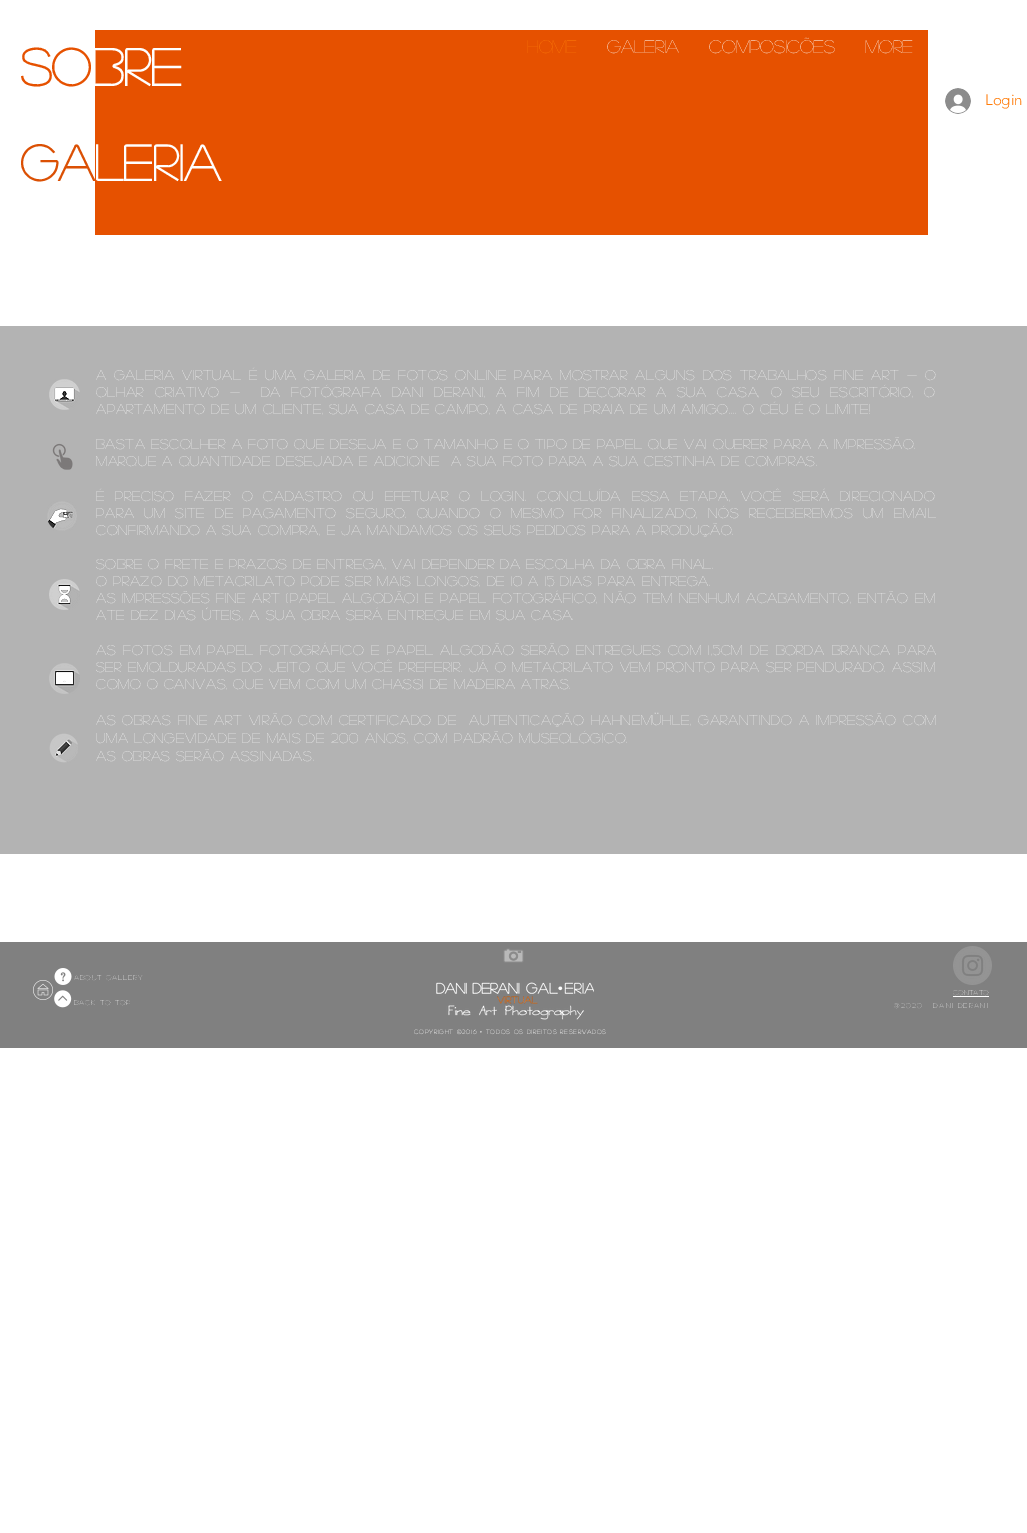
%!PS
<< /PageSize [1027 1533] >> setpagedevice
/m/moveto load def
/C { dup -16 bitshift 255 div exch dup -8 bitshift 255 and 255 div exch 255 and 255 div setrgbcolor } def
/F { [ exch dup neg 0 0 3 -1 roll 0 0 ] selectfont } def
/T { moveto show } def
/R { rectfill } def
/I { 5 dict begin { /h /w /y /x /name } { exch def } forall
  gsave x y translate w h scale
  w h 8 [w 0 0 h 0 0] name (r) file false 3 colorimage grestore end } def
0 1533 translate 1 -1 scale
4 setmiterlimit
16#FFFFFF C
0 0 1027 1533 R
16#E65100 C
95 30 833 205 R
/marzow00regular-Regular 18 F
16#FF7C09 C
(HOME) 527 53 T
16#FFFFFF C
(GALERIA) 607 53 T
(COMPOSICÕES) 709 53 T
(More) 865 53 T
/marzow00regular-Bold 52 F
16#E65100 C
(so) 20 86 T
16#FFFFFF C
(bre) 91 86 T
/marzow00regular-Bold 50 F
16#DB5004 C
(GA) 20 181 T
16#FFFFFF C
(LERIA) 94 181 T
16#B3B3B3 C
0 326 1027 528 R
(1.rgb) 49 379 31 31 I
/marzow00regular-Regular 14 F
16#FFFFFF C
96 380 m 1.7 0 32 .7 0 (A Galeria Virtual é uma galeria de fotos online para mostrar alguns dos trabalhos Fine Art - o) awidthshow
96 397 m 4.6 0 32 .7 0 (olhar criativo -  da fotógrafa dani derani, a fim de decorar a sua casa, o seu escritório, o) awidthshow
96 414 m .7 0 (apartamento de um cliente, sua casa de campo, a casa de praia de um amigo.... O céu é o limite!) ashow
96 449 m .7 0 (Basta escolher a foto que deseja e o tamanho e o tipo de papel que vai querer para a impressão.) ashow
96 466 m .7 0 (marque a quantidade desejada e adicione  a sua foto para a sua cestinha de compras.) ashow
96 501 m 4.75 0 32 .7 0 (é preciso fazer o cadastro ou efetuar o login. Concluída essa etapa, você será direcionado) awidthshow
96 518 m 4.25 0 32 .7 0 (para um site de pagamento seguro. Quando o mesmo for finalizado, nós receberemos um email) awidthshow
96 535 m .7 0 (confirmando a sua compra, e ja mandamos os seus pedidos para a produção.) ashow
96 569 m .7 0 (Sobre o frete e prazos de entrega, vai depender da escolha da obra final.) ashow
96 586 m .7 0 (O prazo do metacrilato pode SER MAIS LONGOS, de 10 a 15 dias para entrega.) ashow
96 603 m .6 0 32 .7 0 (As impressões Fine Art \(papel algodão\) e Papel fotográfico, não tem nenhum acabamento, então em) awidthshow
96 620 m .7 0 (ate dez dias úteis, a sua obra será entregue em sua casa.) ashow
96 655 m 1.4 0 32 .7 0 (As fotos em papel fotográfico e papel algodão serão entregues com 1,5cm de borda branca para) awidthshow
96 672 m .25 0 32 .7 0 (ser emolduradas do jeito que você preferir. Já o metacrilato vem pronto para ser pendurado. Assim) awidthshow
96 689 m .7 0 (como o canvas, que vem com um chassi de madeira atras.) ashow
96 725 m .75 0 32 .75 0 (As obras Fine Art virão com certificado de  autenticação Hahnemühle, garantindo a impressão com) awidthshow
96 743 m .75 0 (uma longevidade de mais de 200 anos, com padrão museológico.) ashow
96 761 m .75 0 (As obras serão assinadas.) ashow
(2.rgb) 52 443 21 27 I
(3.rgb) 47 501 30 30 I
(4.rgb) 49 579 31 31 I
(5.rgb) 49 663 31 31 I
(6.rgb) 49 733 29 30 I
(7.rgb) 945 88 26 26 I
/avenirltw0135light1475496-Light 15 F
16#FF7C09 C
(Login) 985 105 T
16#808080 C
0 942 1027 106 R
(8.rgb) 503 948 21 15 I
(9.rgb) 953 946 39 39 I
(10.rgb) 54 968 18 17 I
/marzow00regular-Regular 7 F
16#FFFFFF C
74 980 m 1 0 (ABOUT GALLERY) ashow
(11.rgb) 33 980 20 20 I
(12.rgb) 54 990 18 18 I
(13.rgb) 436 982 158 38 I
953 995 m .25 0 (contato) ashow
953 996 36 1 R
74 1005 m 1 0 (Back to Top) ashow
894 1008 m 1.4 0 (@2020 | Dani Derani) ashow
/marzow00regular-Bold 6 F
414 1034 m .9 0 (Copyright ©2016 • Todos os Direitos Reservados) ashow
showpage
